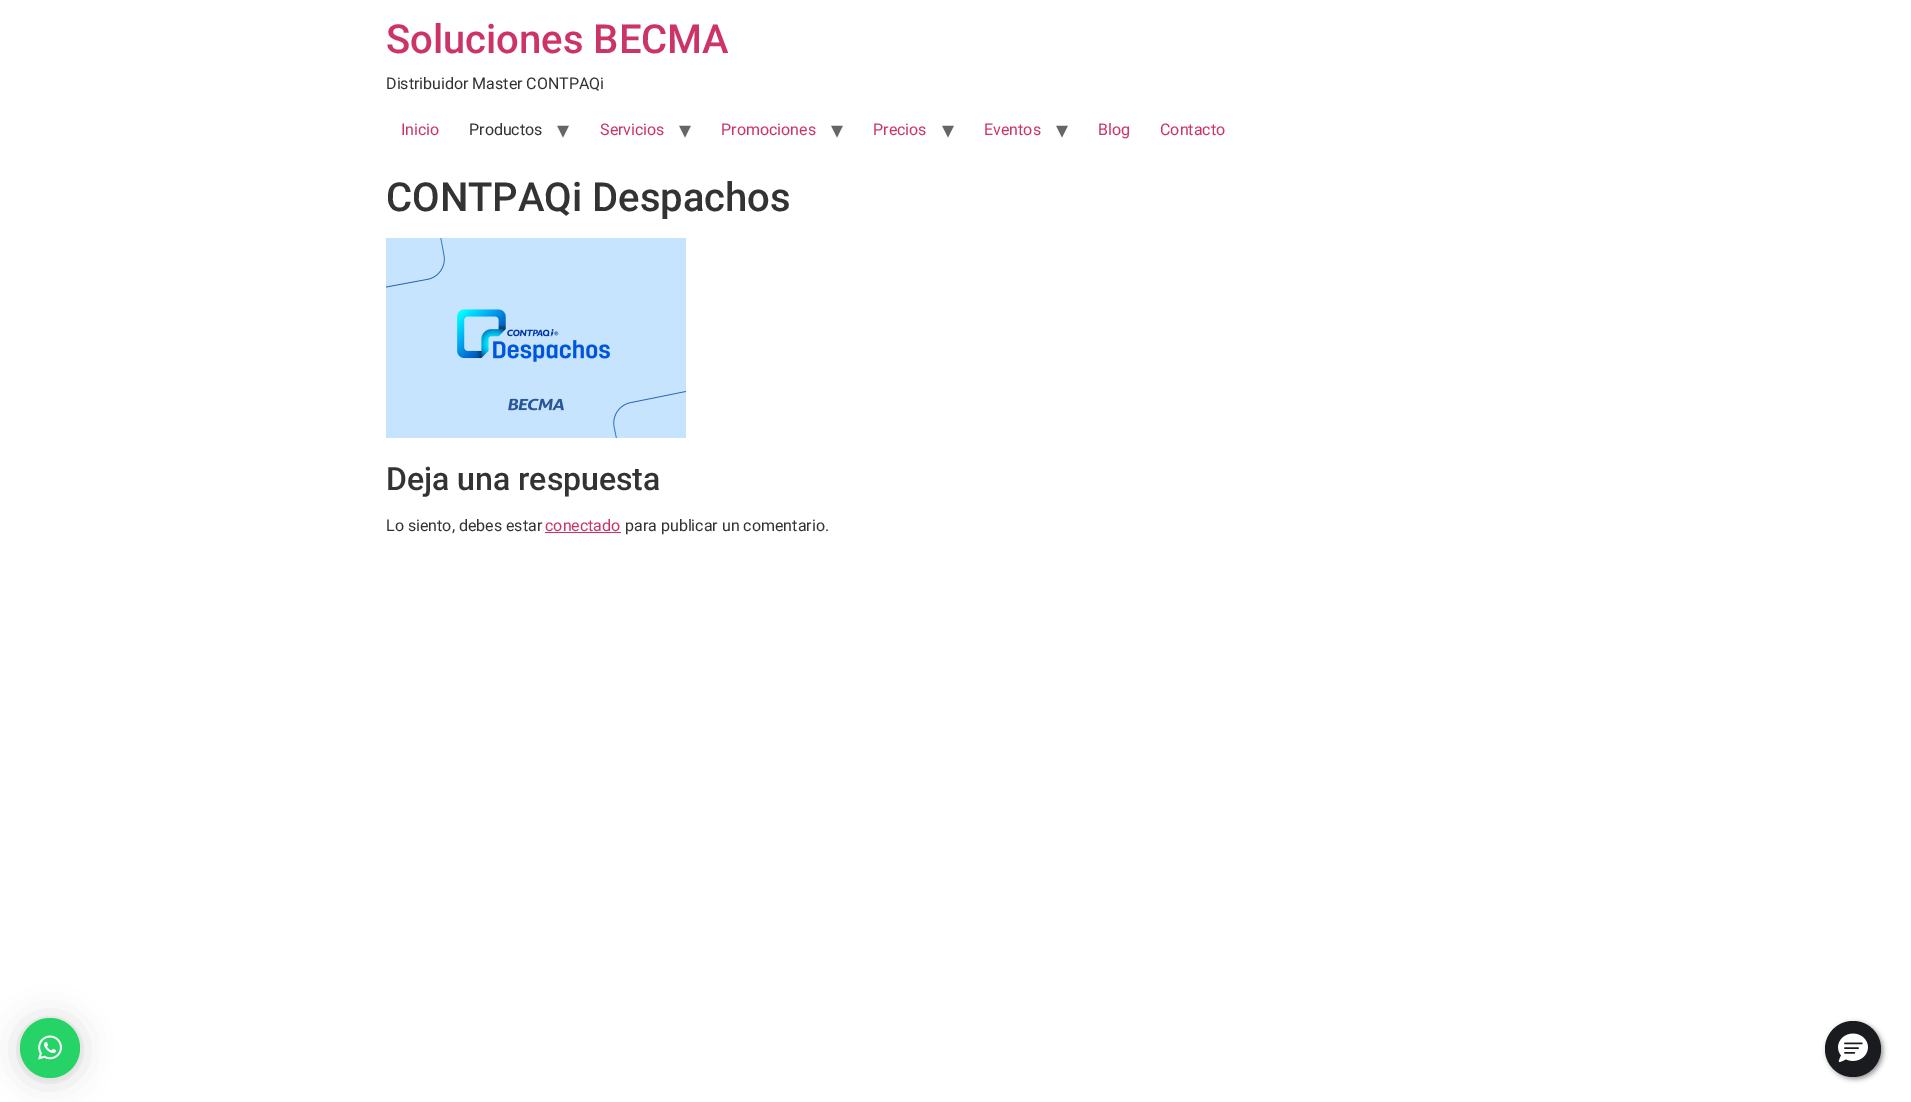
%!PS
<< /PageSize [1911 1102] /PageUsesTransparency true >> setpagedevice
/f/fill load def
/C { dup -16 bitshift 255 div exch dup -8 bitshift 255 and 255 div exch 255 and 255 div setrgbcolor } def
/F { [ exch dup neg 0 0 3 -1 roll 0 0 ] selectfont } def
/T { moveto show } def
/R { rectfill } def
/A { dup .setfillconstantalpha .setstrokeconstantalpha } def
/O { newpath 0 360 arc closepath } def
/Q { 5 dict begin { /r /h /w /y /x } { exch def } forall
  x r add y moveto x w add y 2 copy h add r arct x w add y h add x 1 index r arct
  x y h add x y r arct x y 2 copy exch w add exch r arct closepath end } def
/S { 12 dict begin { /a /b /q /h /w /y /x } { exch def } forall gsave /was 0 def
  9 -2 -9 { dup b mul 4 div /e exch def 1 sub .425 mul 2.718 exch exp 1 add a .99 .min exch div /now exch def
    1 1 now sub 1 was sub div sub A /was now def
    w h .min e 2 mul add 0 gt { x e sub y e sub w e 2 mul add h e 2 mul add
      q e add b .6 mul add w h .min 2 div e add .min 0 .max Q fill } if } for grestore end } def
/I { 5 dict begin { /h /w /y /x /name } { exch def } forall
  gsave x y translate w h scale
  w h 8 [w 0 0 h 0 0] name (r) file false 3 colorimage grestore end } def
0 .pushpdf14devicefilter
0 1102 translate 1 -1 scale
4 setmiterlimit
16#FFFFFF C
0 0 1911 1102 R
/Roboto-Medium 40 F
16#CC3366 C
(Soluciones BECMA) 386 53 T
/Roboto-Regular 16 F
16#333333 C
(Distribuidor Master CONTPAQi) 386 89 T
16#CC3366 C
(Inicio) 401 135 T
16#333333 C
(Productos) 469 135 T
/DejaVuSans-Regular 24 F
16#666666 C
(▾) 557 138 T
/Roboto-Regular 16 F
16#CC3366 C
(Servicios) 600 135 T
/DejaVuSans-Regular 24 F
16#666666 C
(▾) 679 138 T
/Roboto-Regular 16 F
16#CC3366 C
(Promociones) 721 135 T
/DejaVuSans-Regular 24 F
16#666666 C
(▾) 831 138 T
/Roboto-Regular 16 F
16#CC3366 C
(Precios) 873 135 T
/DejaVuSans-Regular 24 F
16#666666 C
(▾) 942 138 T
/Roboto-Regular 16 F
16#CC3366 C
(Eventos) 984 135 T
/DejaVuSans-Regular 24 F
16#666666 C
(▾) 1056 138 T
/Roboto-Regular 16 F
16#CC3366 C
(Blog) 1098 135 T
(Contacto) 1160 135 T
/Roboto-Medium 40 F
16#333333 C
(CONTPAQi Despachos) 386 211 T
(1.rgb) 386 238 300 200 I
/Roboto-Medium 32 F
(Deja una respuesta) 386 490 T
/Roboto-Regular 16 F
(Lo siento, debes estar) 386 531 T
16#CC3366 C
(conectado) 545 531 T
545 532 76 1 R
16#333333 C
(para publicar un comentario.) 625 531 T
16#000000 C
20 1020 60 60 30 16 .16 S
20 1019 60 60 30 3 .06 S
16#25D366 C
50 1048 30 O f
(2.rgb) 38 1035 24 25 I
16#2D2D2D C
1827 1023 56 56 28 2.5 .5 S
16#1A1B1E C
1853 1049 28 O f
(3.rgb) 1838 1033 30 29 I
.poppdf14devicefilter showpage
